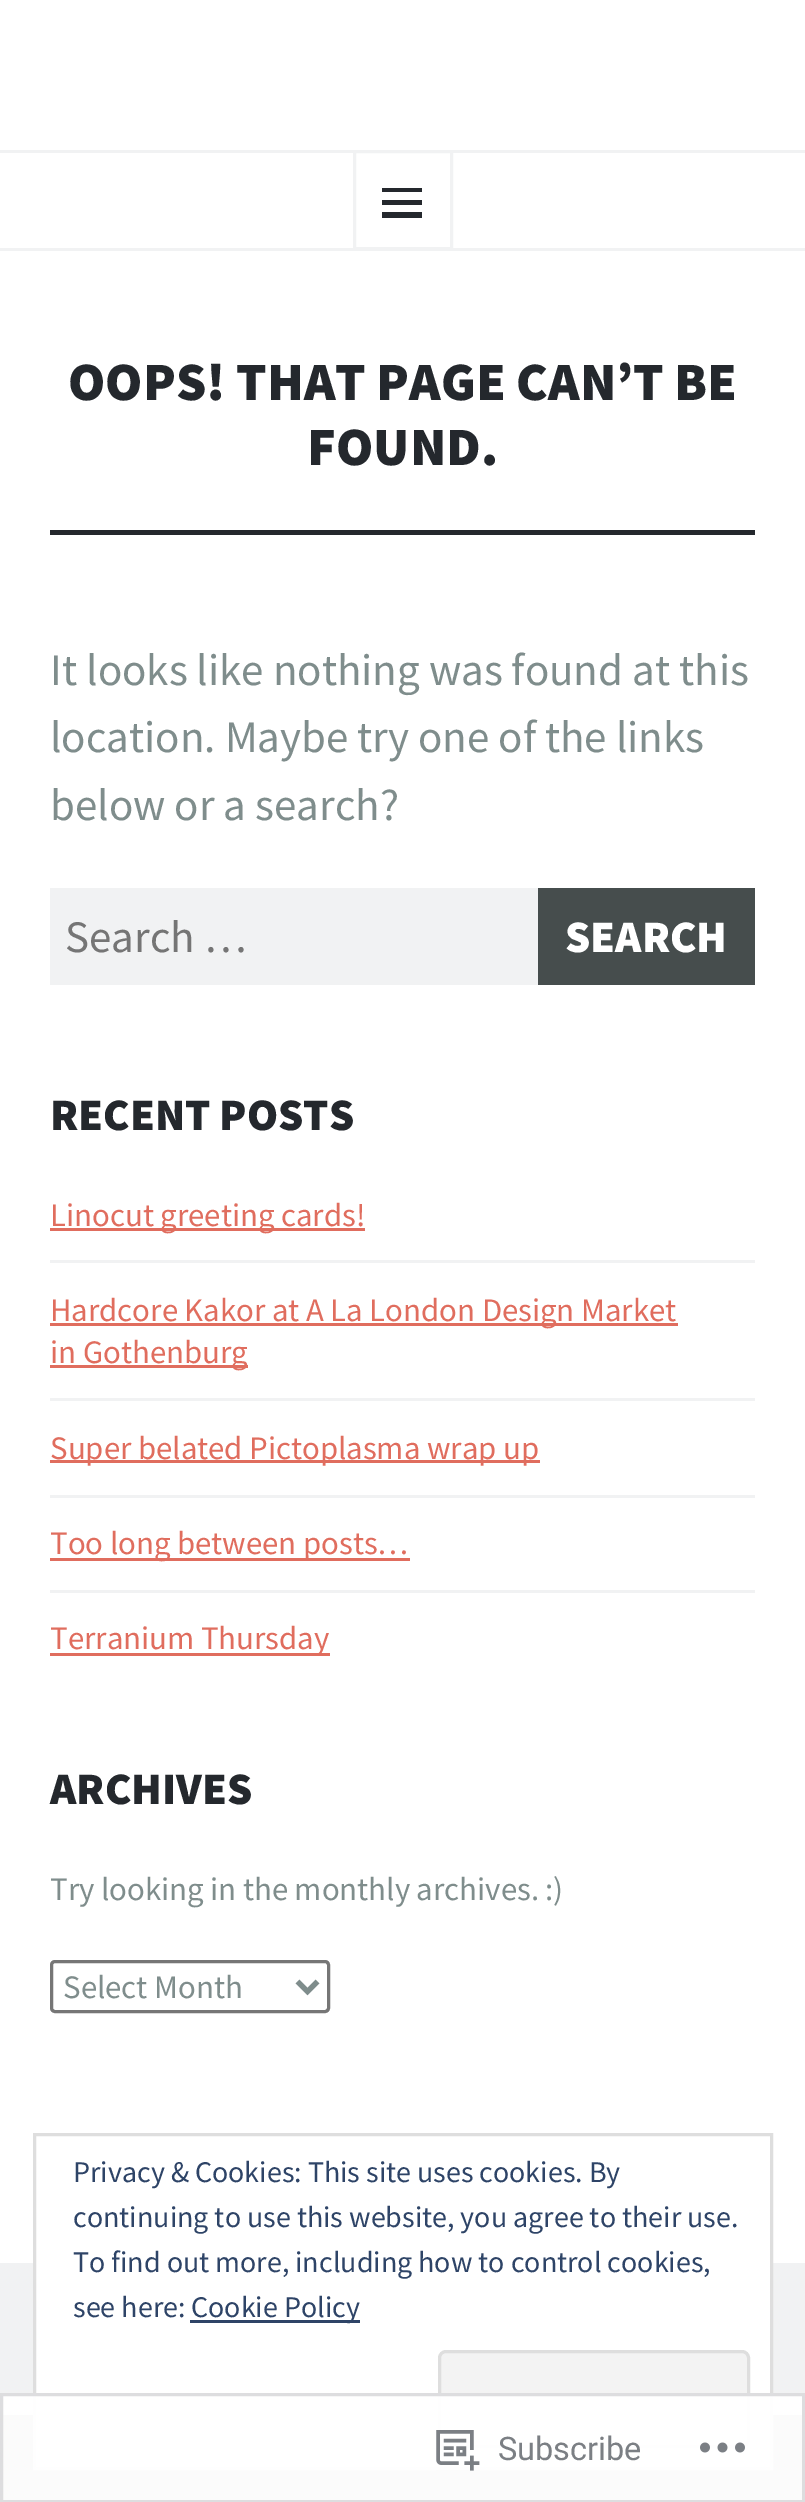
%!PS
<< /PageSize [805 2502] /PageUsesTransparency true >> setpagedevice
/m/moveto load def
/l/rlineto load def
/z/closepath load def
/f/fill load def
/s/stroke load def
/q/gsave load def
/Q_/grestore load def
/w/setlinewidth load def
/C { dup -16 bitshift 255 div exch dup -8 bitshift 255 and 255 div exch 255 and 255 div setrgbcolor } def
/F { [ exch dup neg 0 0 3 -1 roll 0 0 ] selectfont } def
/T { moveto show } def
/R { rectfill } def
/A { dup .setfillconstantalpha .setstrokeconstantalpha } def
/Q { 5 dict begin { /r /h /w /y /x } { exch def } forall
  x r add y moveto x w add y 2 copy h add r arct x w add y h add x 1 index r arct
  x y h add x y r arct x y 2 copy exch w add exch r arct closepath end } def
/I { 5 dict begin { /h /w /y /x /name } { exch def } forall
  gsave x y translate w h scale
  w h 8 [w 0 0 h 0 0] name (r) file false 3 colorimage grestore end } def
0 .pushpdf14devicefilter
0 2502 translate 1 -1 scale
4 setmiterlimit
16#24282D C
0 0 805 2502 R
16#FFFFFF C
0 0 805 2263 R
16#F1F2F3 C
0 150 805 3 R
0 248 805 3 R
3 w
354.5 151.5 97 97 rectstroke
16#24282D C
382 218 m 0 -6 l 40 0 l 0 6 l z 382 188 m 40 0 l 0 4 l -40 0 l z 382 205 m 0 -5 l 40 0 l 0 5 l z f
/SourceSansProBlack-Black 54 F
(OOPS! THAT PAGE CAN’T BE) 68 400 T
(FOUND.) 307 465 T
50 530 705 5 R
/SourceSansPro-Regular 45 F
16#7F8D8C C
(It looks like nothing was found at this) 50 685 T
(location. Maybe try one of the links) 50 752 T
(below or a search?) 50 820 T
16#F1F2F3 C
50 888 488 97 R
16#757575 C
(Search …) 65 952 T
16#464D4D C
538 888 217 97 R
/SourceSansProBlack-Black 45 F
16#FFFFFF C
(SEARCH) 565 952 T
16#24282D C
(RECENT POSTS) 50 1130 T
16#F1F2F3 C
50 1260 705 3 R
16#E06D5E C
50 1228 315 3 R
/SourceSansPro-Regular 32.8 F
(Linocut greeting cards!) 50 1226 T
16#F1F2F3 C
50 1398 705 3 R
16#E06D5E C
50 1323 628 3 R
(Hardcore Kakor at A La London Design Market) 50 1321 T
50 1365 198 3 R
(in Gothenburg) 50 1363 T
16#F1F2F3 C
50 1495 705 3 R
16#E06D5E C
50 1460 490 3 R
(Super belated Pictoplasma wrap up) 50 1459 T
16#F1F2F3 C
50 1590 705 3 R
16#E06D5E C
50 1558 360 3 R
(Too long between posts…) 50 1554 T
50 1653 280 3 R
(Terranium Thursday) 50 1649 T
/SourceSansProBlack-Black 45 F
16#24282D C
(ARCHIVES) 50 1804 T
/SourceSansPro-Regular 32.8 F
16#7F8D8C C
(Try looking in the monthly archives. :\)) 50 1900 T
16#767676 C
51.5 1961.5 277 50 3.5 Q s
16#7F8D8C C
5 w
297.5 1981.5 m 10 10 l 10 -10 l s
(Select Month) 63 1998 T
16#F1F2F3 C
0 2263 805 152 R
16#FFFFFF C
36 2263 734 204 R
16#DEDEDE C
3 w
34.5 2134.5 737 334 rectstroke
/SourceSansPro-Regular 30 F
16#2E4467 C
(Privacy & Cookies: This site uses cookies. By) 73 2182 T
(continuing to use this website, you agree to their use.) 73 2227 T
(To find out more, including how to control cookies,) 73 2272 T
(see here:) 73 2317 T
190 2320 170 3 R
(Cookie Policy) 191 2317 T
16#F3F3F3 C
439.5 2351.5 309 95 6.5 Q q f Q_
16#DEDEDE C
s
0.98 A
16#FFFFFF C
0 2393 805 109 R
16#DCDCDE C
1.5 2394.5 802 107 rectstroke
1 A
(1.rgb) 436 2430 44 41 I
/Roboto-Regular 32.5 F
16#7B7F84 C
(Subscribe) 498 2460 T
(2.rgb) 700 2442 45 11 I
.poppdf14devicefilter showpage
